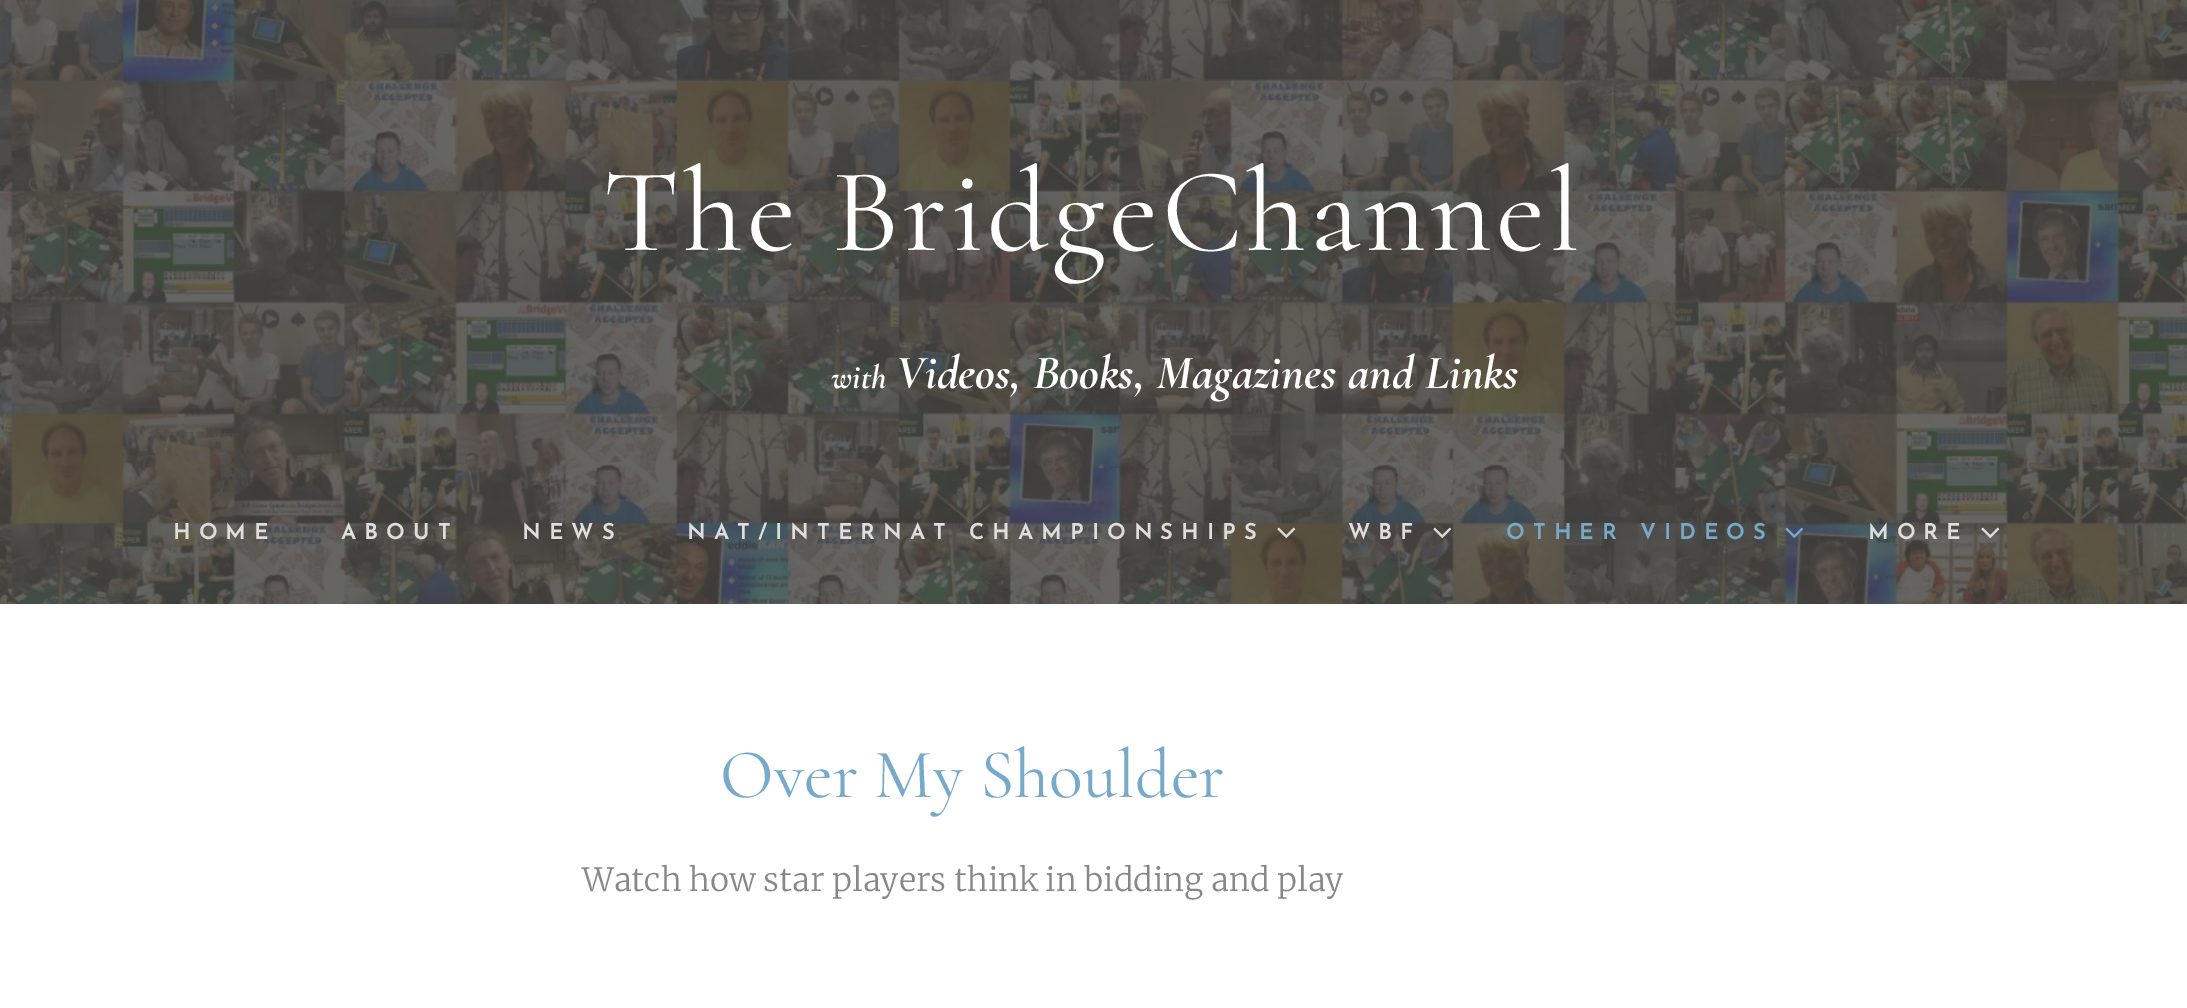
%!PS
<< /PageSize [2187 1008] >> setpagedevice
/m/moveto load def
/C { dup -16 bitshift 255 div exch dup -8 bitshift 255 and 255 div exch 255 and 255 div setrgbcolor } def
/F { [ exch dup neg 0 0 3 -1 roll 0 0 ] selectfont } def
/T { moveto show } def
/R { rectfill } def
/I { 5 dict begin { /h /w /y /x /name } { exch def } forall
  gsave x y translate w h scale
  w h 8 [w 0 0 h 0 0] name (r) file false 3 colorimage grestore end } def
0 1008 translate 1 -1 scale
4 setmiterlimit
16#FFFFFF C
0 0 2187 1008 R
(1.rgb) 0 0 2187 604 I
/Cormorant-Regular 120 F
603 250 m 4 0 (The BridgeChannel) ashow
/Cormorant-BoldItalic 34 F
(with) 831 388 T
/Cormorant-BoldItalic 48 F
(Videos, Books, Magazines and Links) 896 388 T
/JosefinSans-SemiBold 22 F
16#DFDEDD C
173 539 m 8 0 (HOME) ashow
341 539 m 8 0 (ABOUT) ashow
522 539 m 8 0 (NEWS) ashow
687 539 m 8 0 (NAT/INTERNAT CHAMPIONSHIPS) ashow
(2.rgb) 1277 527 19 11 I
1348 539 m 8 0 (WBF) ashow
(3.rgb) 1433 527 19 11 I
16#77A9CA C
1506 539 m 8 0 (OTHER VIDEOS) ashow
(4.rgb) 1785 527 19 11 I
16#DFDEDD C
1868 539 m 8 0 (MORE) ashow
(5.rgb) 1981 527 19 11 I
/Cormorant-Regular 70 F
16#77A9CA C
(Over My Shoulder) 720 797 T
/Merriweather-Light 32 F
16#888888 C
(Watch how star players think in bidding and play) 582 891 T
showpage
